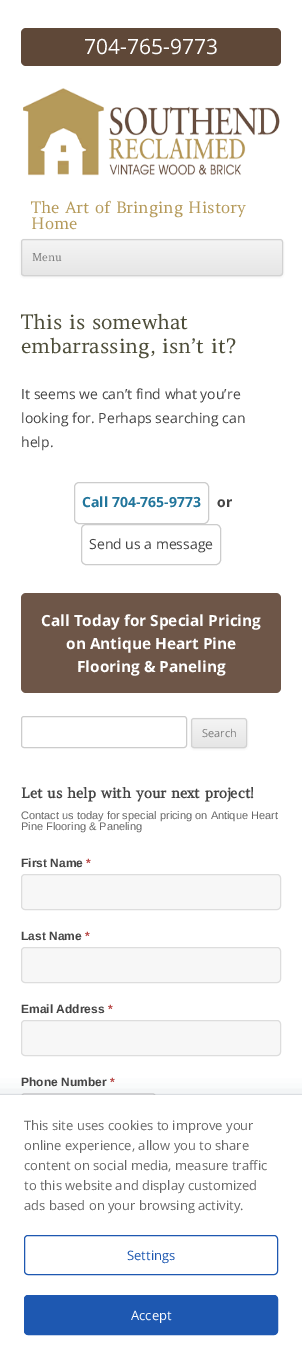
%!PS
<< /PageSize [302 1355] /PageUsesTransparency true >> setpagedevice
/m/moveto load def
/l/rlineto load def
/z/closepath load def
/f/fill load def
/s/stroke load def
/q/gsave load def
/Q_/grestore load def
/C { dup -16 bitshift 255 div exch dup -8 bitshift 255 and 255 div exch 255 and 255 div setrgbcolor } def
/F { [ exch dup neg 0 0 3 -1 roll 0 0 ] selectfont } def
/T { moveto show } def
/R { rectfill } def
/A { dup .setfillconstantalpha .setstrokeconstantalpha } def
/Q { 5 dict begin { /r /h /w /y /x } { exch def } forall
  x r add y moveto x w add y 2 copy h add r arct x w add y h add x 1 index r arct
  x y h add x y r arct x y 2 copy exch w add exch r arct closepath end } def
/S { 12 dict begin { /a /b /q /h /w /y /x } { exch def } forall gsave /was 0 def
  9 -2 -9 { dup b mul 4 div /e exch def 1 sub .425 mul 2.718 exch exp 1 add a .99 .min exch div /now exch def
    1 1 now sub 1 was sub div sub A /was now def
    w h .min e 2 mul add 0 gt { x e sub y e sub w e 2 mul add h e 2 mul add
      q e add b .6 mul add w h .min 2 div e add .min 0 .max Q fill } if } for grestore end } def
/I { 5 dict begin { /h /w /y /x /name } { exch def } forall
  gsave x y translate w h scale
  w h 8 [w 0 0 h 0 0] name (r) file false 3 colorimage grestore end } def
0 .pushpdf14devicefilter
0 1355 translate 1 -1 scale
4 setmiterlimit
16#FFFFFF C
0 0 302 1355 R
16#5F4838 C
21 28 260 38 5 Q f
/OpenSans-Regular 21 F
16#FFFFFF C
(704-765-9773) 84 54 T
(1.rgb) 23 88 257 88 I
/Amethysta-Regular 16 F
16#B59A5A C
(The Art of Bringing History) 31 213 T
(Home) 31 229 T
16#404040 C
21 240 262 37 3 1 .1 S
q
21 239 262 37 3 Q clip newpath
q 21 240 m 262 0 l 0 35 l -262 0 l z clip newpath
<< /ShadingType 2 /ColorSpace /DeviceRGB /Coords [152 240 152 275] /Extend [true true] /Function << /FunctionType 2 /Domain [0 1] /C0 [.957 .957 .957] /C1 [.902 .902 .902] /N 1 >> >> shfill Q_
Q_
16#D2D2D2 C
21.5 239.5 261 36 2.5 Q s
/Amethysta-Regular 11 F
16#7C7C7C C
(Menu) 32 261 T
/Amethysta-Regular 20 F
16#4D4D39 C
(This is somewhat) 21 329 T
(embarrassing, isn’t it?) 21 353 T
/OpenSans-Regular 14 F
16#444444 C
(It seems we can’t find what you’re) 21 399 T
(looking for. Perhaps searching can) 21 423 T
(help.) 21 447 T
16#CCCCCC C
74.5 482.5 134 41 4.5 Q s
/OpenSans-Bold 14 F
16#21759B C
(Call 704-765-9773) 82 507 T
16#444444 C
(or) 217 507 T
16#CCCCCC C
81.5 524.5 139 40 4.5 Q s
/OpenSans-Regular 14 F
16#444444 C
(Send us a message) 89 549 T
16#6E5648 C
21 593 260 100 5 Q f
/OpenSans-Bold 15.4 F
16#FFFFFF C
(Call Today for Special Pricing) 41 626 T
(on Antique Heart Pine) 66 649 T
(Flooring & Paneling) 77 672 T
16#CCCCCC C
21.5 716.5 165 31 2.5 Q s
16#404040 C
191 719 56 30 3 1 .1 S
q
191 718 56 30 3 Q clip newpath
q 191 719 m 56 0 l 0 28 l -56 0 l z clip newpath
<< /ShadingType 2 /ColorSpace /DeviceRGB /Coords [219 719 219 747] /Extend [true true] /Function << /FunctionType 2 /Domain [0 1] /C0 [.957 .957 .957] /C1 [.902 .902 .902] /N 1 >> >> shfill Q_
Q_
16#D2D2D2 C
191.5 718.5 55 29 2.5 Q s
/OpenSans-Regular 11 F
16#7C7C7C C
(Search) 202 737 T
/Amethysta-Bold 14 F
16#444444 C
(Let us help with your next project!) 21 798 T
/LiberationSans-Regular 11 F
16#666666 C
(Contact us today for special pricing on Antique Heart) 21 819 T
(Pine Flooring & Paneling) 21 830 T
/LiberationSans-Bold 12 F
16#444444 C
(First Name) 21 867 T
16#B94A48 C
(*) 86 867 T
16#F7F7F7 C
21.5 874.5 259 35 3.5 Q q f Q_
16#DDDDDD C
s
16#444444 C
(Last Name) 21 940 T
16#B94A48 C
(*) 85 940 T
16#F7F7F7 C
21.5 947.5 259 35 3.5 Q q f Q_
16#DDDDDD C
s
16#444444 C
(Email Address) 21 1013 T
16#B94A48 C
(*) 108 1013 T
16#F7F7F7 C
21.5 1020.5 259 35 3.5 Q q f Q_
16#DDDDDD C
s
16#444444 C
(Phone Number) 21 1086 T
16#B94A48 C
(*) 110 1086 T
16#F7F7F7 C
21.5 1093.5 134 35 3.5 Q q f Q_
16#DDDDDD C
s
16#242F42 C
-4 1101 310 248 0 10 .31 S
0.08 A
-.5 1094.5 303 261 rectstroke
1 A
16#FFFFFF C
0 1095 302 260 R
/OpenSans-Regular 13 F
16#666666 C
(This site uses cookies to improve your) 24 1130 T
(online experience, allow you to share) 24 1150 T
(content on social media, measure traffic) 24 1170 T
(to this website and display customized) 24 1190 T
(ads based on your browsing activity.) 24 1210 T
16#1E58B1 C
24.5 1235.5 253 39 3.5 Q s
(Settings) 127 1260 T
24.5 1295.5 253 39 3.5 Q q f Q_
s
16#FFFFFF C
(Accept) 131 1320 T
.poppdf14devicefilter showpage
